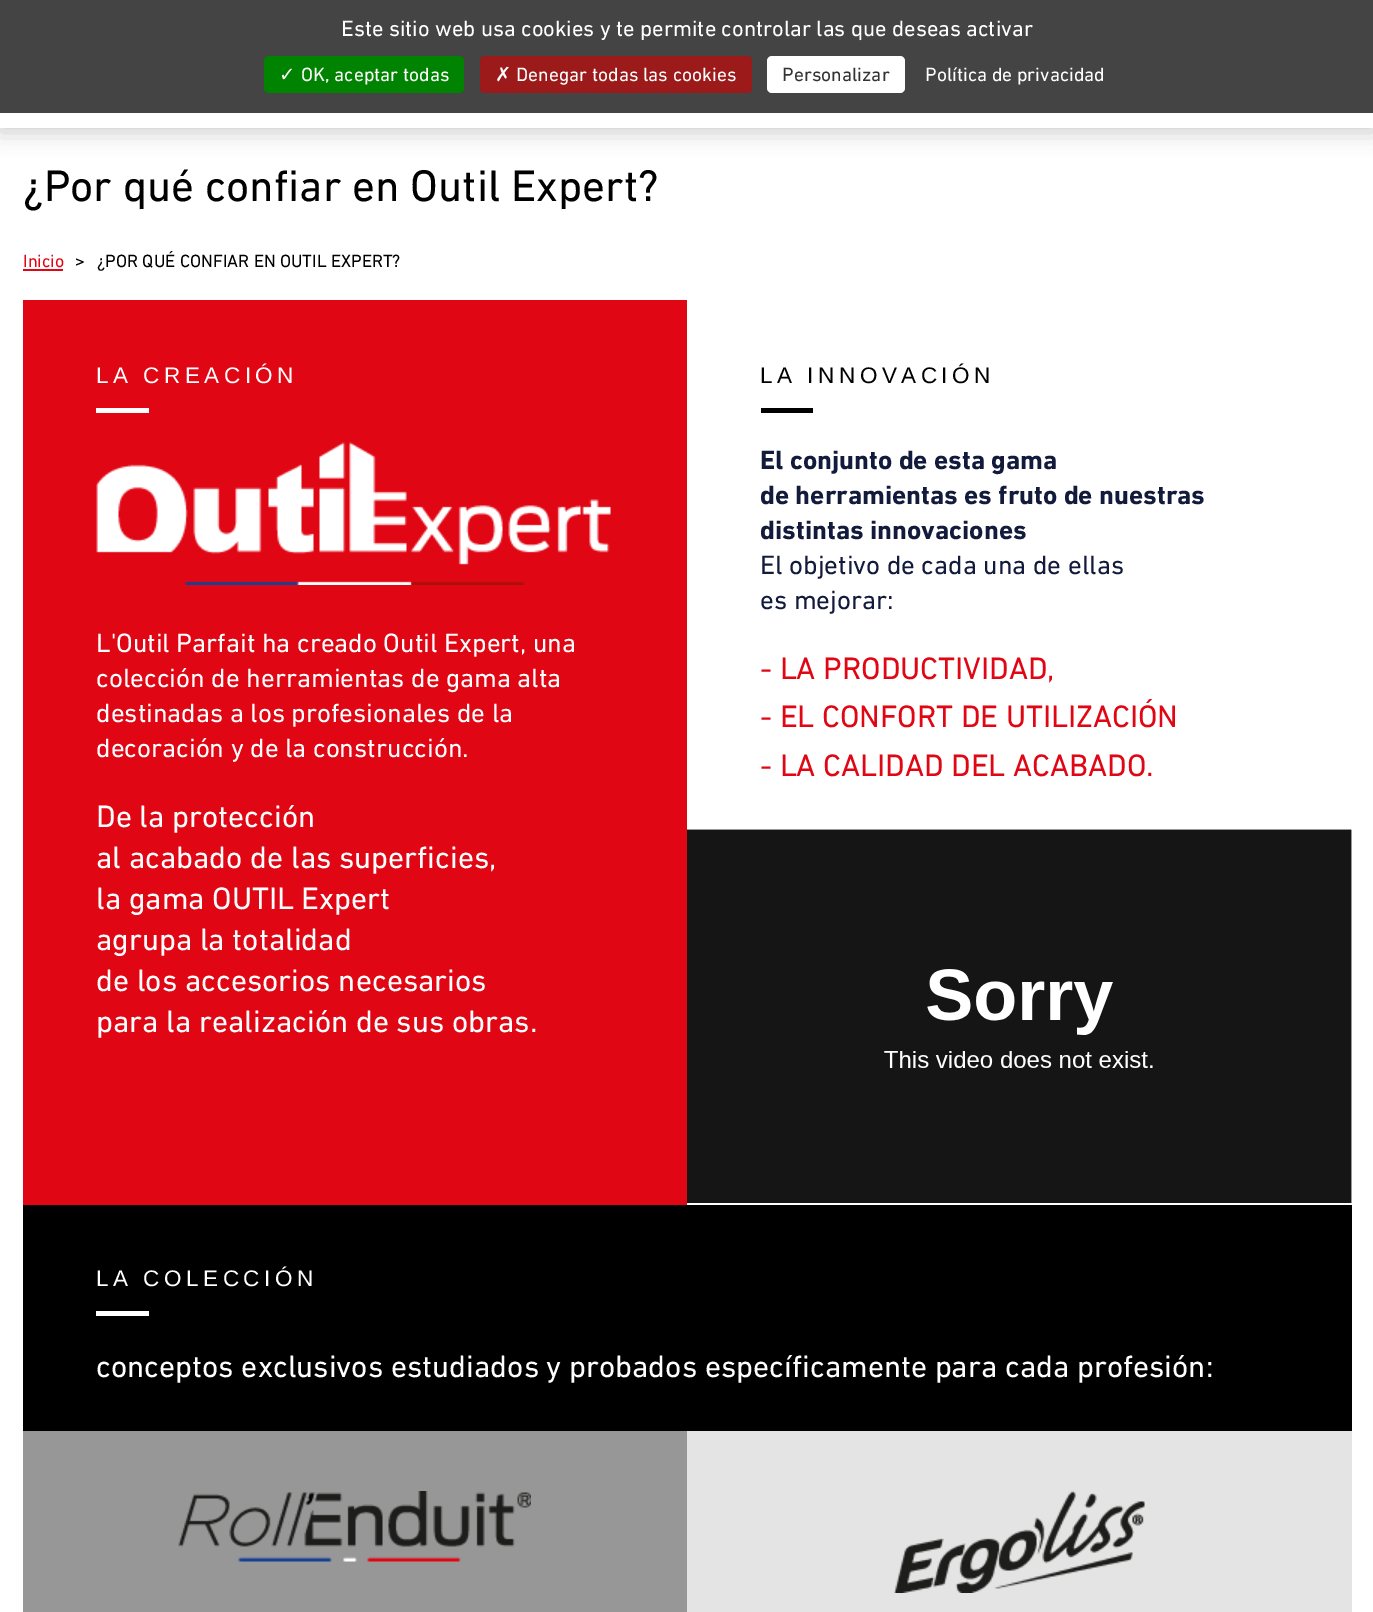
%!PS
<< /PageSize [1373 1612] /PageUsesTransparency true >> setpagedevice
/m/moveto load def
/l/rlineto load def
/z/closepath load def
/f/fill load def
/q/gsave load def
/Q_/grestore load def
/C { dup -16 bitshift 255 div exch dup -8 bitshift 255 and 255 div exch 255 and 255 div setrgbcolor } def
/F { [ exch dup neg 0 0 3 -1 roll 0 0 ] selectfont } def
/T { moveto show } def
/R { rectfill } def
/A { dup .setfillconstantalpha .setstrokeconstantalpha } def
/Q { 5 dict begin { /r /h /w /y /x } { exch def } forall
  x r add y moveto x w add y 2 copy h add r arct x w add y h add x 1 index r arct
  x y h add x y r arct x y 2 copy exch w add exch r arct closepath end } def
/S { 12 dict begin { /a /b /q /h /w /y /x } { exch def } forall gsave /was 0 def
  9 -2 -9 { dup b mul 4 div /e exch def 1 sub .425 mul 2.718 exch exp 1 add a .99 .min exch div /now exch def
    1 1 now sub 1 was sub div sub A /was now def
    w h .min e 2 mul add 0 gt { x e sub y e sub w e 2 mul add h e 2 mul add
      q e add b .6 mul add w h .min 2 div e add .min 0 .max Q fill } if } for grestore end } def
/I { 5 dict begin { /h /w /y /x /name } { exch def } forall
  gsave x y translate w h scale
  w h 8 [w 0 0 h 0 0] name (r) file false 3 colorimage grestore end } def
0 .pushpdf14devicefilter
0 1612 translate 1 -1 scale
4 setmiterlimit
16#FFFFFF C
0 0 1373 1612 R
q
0 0 m 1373 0 l 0 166 l -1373 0 l z 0 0 m 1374 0 l 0 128 l -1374 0 l z eoclip newpath
16#000000 C
0 5 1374 127 0 11 .2 S
Q_
16#444444 C
0 0 1373 113 R
/DIN-Regular 22.5 F
16#FFFFFF C
(Este sitio web usa cookies y te permite controlar las que deseas activar) 341 36 T
16#008300 C
264 56 200 37 5 Q f
/DejaVuSans-Regular 19.5 F
16#FFFFFF C
(✓) 279 81 T
/DIN-Regular 19.5 F
(OK, aceptar todas) 301 81 T
16#9C1A1A C
480 56 272 37 5 Q f
/DejaVuSans-Regular 19.5 F
16#FFFFFF C
(✗) 495 81 T
/DIN-Regular 19.5 F
(Denegar todas las cookies) 516 81 T
767 56 138 37 5 Q f
16#333333 C
(Personalizar) 782 81 T
16#FFFFFF C
(Política de privacidad) 925 81 T
/DIN-Regular 45 F
16#000000 C
(¿Por qué confiar en Outil Expert?) 23 201 T
/DIN-Regular 18 F
16#E00613 C
(Inicio) 23 267 T
23 269 40 2 R
16#000000 C
(>) 75 267 T
(¿POR QUÉ CONFIAR EN OUTIL EXPERT?) 97 267 T
16#E00613 C
23 300 664 905 R
/LiberationSans-Regular 22.5 F
16#FFFFFF C
96 383 m 4.5 0 (LA CREACIÓN) ashow
96 408 53 5 R
(1.rgb) 96 442 515 143 I
/DIN-Regular 27 F
(L'Outil Parfait ha creado Outil Expert, una) 96 652 T
(colección de herramientas de gama alta) 96 687 T
(destinadas a los profesionales de la) 96 722 T
(decoración y de la construcción.) 96 757 T
/DIN-Regular 31.5 F
(De la protección) 96 827 T
(al acabado de las superficies,) 96 868 T
(la gama OUTIL Expert) 96 909 T
(agrupa la totalidad) 96 950 T
(de los accesorios necesarios) 96 991 T
(para la realización de sus obras.) 96 1032 T
/LiberationSans-Regular 22.5 F
16#000000 C
760 383 m 4.5 0 (LA INNOVACIÓN) ashow
761 408 52 5 R
/DIN-Bold 27 F
16#121B3C C
(El conjunto de esta gama) 760 469 T
(de herramientas es fruto de nuestras) 760 504 T
(distintas innovaciones) 760 539 T
/DIN-Regular 27 F
(El objetivo de cada una de ellas) 760 574 T
(es mejorar:) 760 609 T
/DIN-Regular 31.5 F
16#E00613 C
(- LA PRODUCTIVIDAD,) 760 679 T
(- EL CONFORT DE UTILIZACIÓN) 760 727 T
(- LA CALIDAD DEL ACABADO.) 760 776 T
(2.rgb) 687 829 665 374 I
16#000000 C
23 1205 1329 226 R
/LiberationSans-Regular 22.5 F
16#FFFFFF C
96 1286 m 4.5 0 (LA COLECCIÓN) ashow
96 1311 53 5 R
/DIN-Regular 31.5 F
(conceptos exclusivos estudiados y probados específicamente para cada profesión:) 96 1377 T
16#979797 C
23 1431 664 181 R
(3.rgb) 178 1491 353 71 I
16#E4E4E4 C
687 1431 665 181 R
(4.rgb) 894 1491 251 102 I
.poppdf14devicefilter showpage
